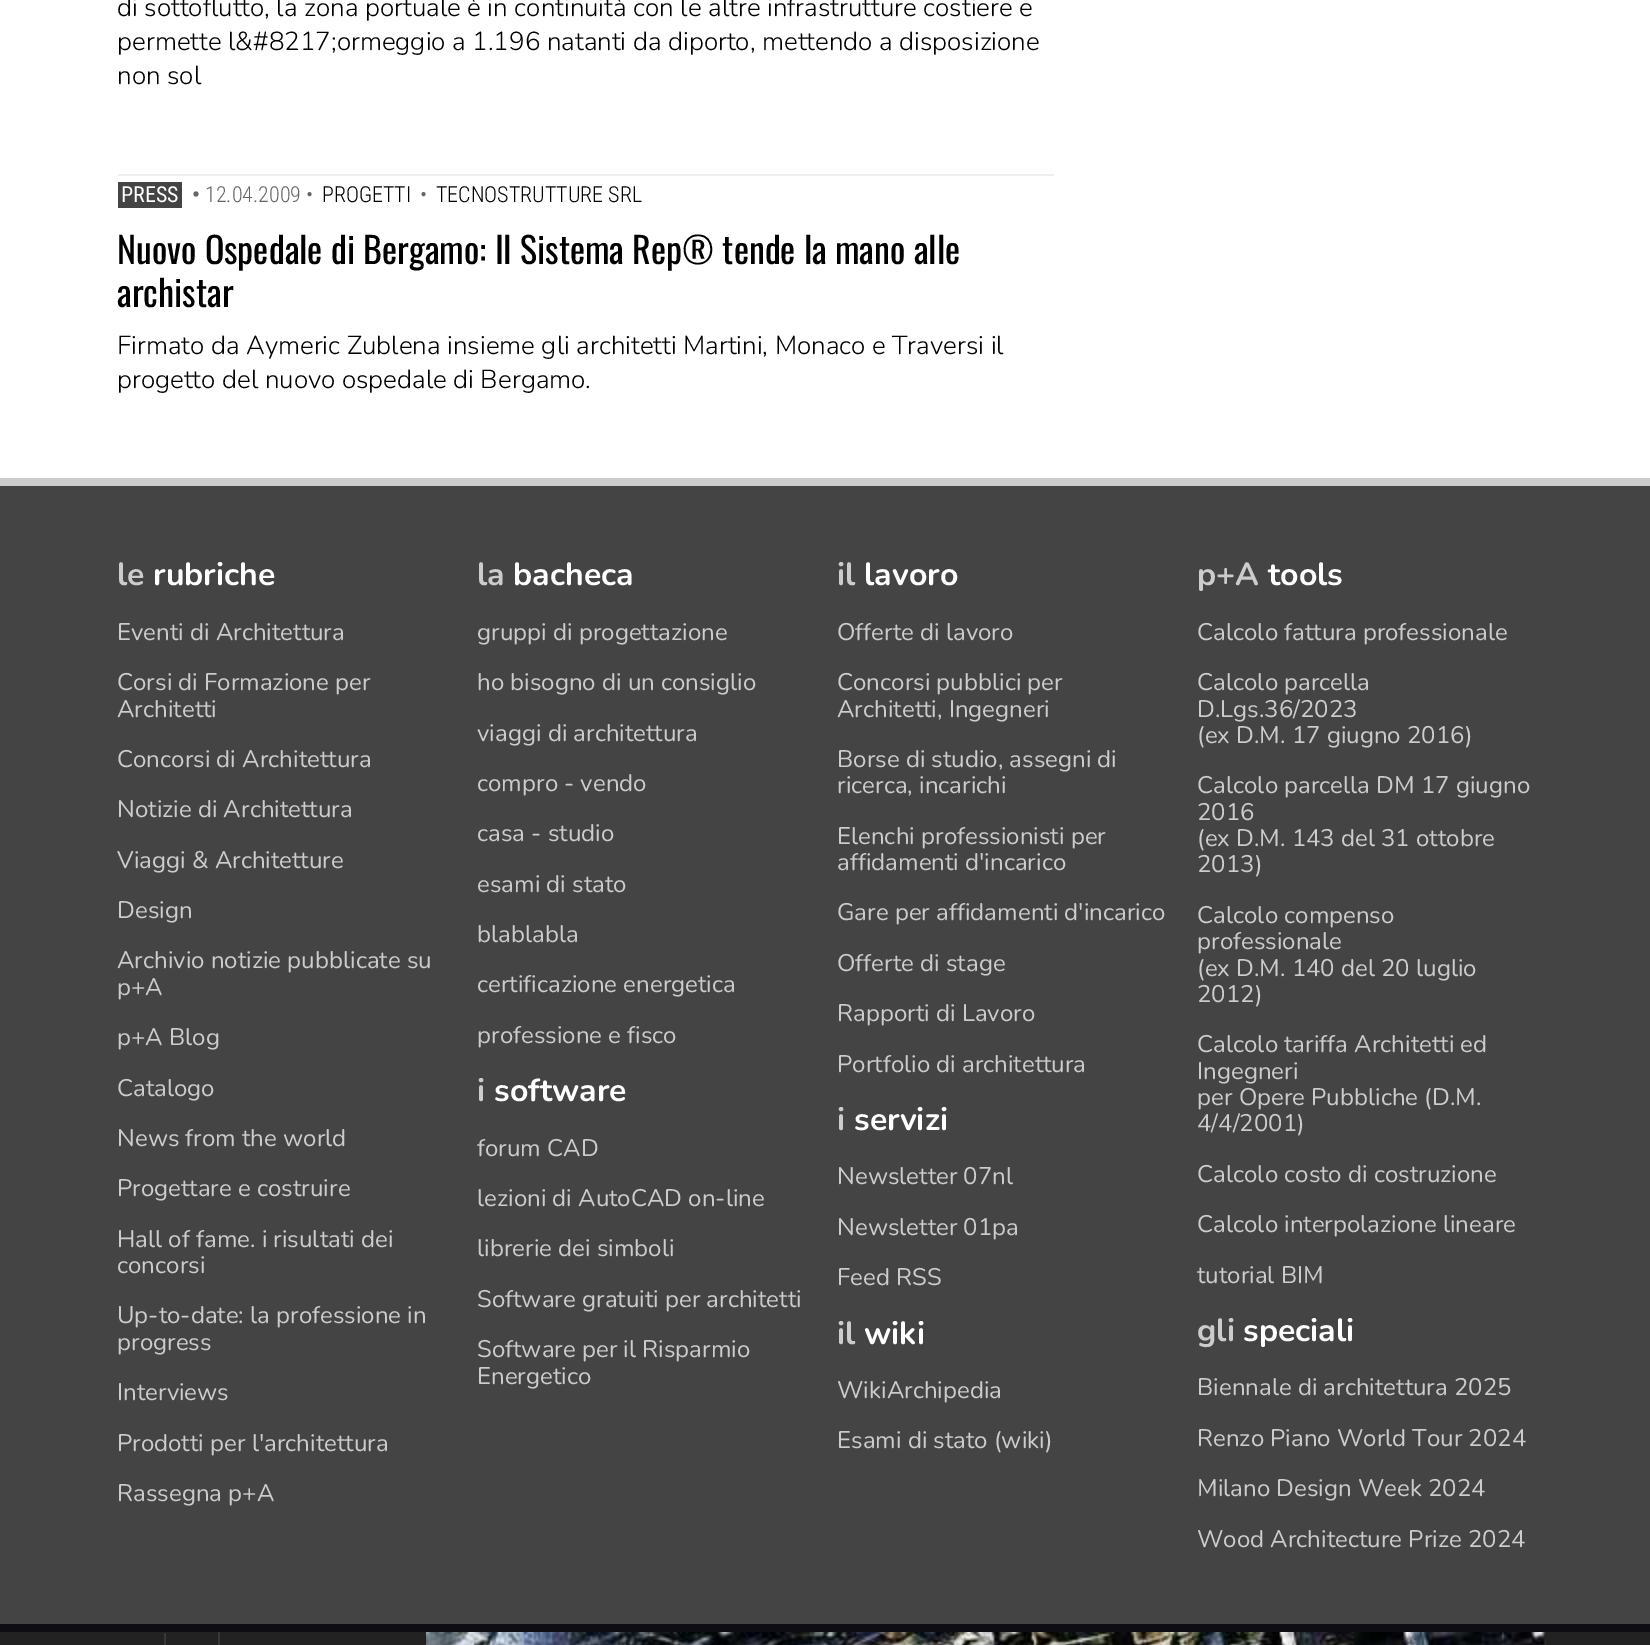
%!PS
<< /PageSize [1650 1645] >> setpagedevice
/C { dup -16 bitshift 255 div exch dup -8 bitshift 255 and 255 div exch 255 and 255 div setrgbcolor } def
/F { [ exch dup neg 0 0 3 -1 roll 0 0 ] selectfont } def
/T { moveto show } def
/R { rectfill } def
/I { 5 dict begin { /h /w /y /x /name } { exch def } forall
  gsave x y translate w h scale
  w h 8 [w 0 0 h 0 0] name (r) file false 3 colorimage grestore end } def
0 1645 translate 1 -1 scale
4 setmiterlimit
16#FFFFFF C
0 0 1650 1645 R
/Nunito-Light 26 F
16#000000 C
(di sottoflutto, la zona portuale è in continuità con le altre infrastrutture costiere e) 117 16 T
(permette l&#8217;ormeggio a 1.196 natanti da diporto, mettendo a disposizione) 117 50 T
(non sol) 117 84 T
16#EEEEEE C
118 174 936 2 R
16#444444 C
118 182 64 26 R
/RobotoCondensed-Regular 22 F
16#FFFFFF C
(PRESS) 121 202 T
/RobotoCondensed-Bold 22 F
16#666666 C
(•) 192 202 T
/RobotoCondensed-Light 22 F
(12.04.2009 •) 205 202 T
16#000000 C
(PROGETTI) 322 202 T
16#666666 C
(•) 420 202 T
16#000000 C
(TECNOSTRUTTURE SRL) 436 202 T
/Oswald-Regular 36 F
(Nuovo Ospedale di Bergamo: Il Sistema Rep® tende la mano alle) 117 264 T
(archistar) 117 307 T
/Nunito-Light 26 F
(Firmato da Aymeric Zublena insieme gli architetti Martini, Monaco e Traversi il) 117 354 T
(progetto del nuovo ospedale di Bergamo.) 117 388 T
16#444444 C
0 486 1650 1138 R
16#CCCCCC C
0 478 1650 8 R
/Nunito-Bold 32 F
(le) 117 585 T
16#FFFFFF C
(rubriche) 153 585 T
/Nunito-Regular 24 F
16#CCCCCC C
(Eventi di Architettura) 117 640 T
(Corsi di Formazione per) 117 690 T
(Architetti) 117 717 T
(Concorsi di Architettura) 117 767 T
(Notizie di Architettura) 117 817 T
(Viaggi & Architetture) 117 868 T
(Design) 117 918 T
(Archivio notizie pubblicate su) 117 968 T
(p+A) 117 995 T
(p+A Blog) 117 1045 T
(Catalogo) 117 1096 T
(News from the world) 117 1146 T
(Progettare e costruire) 117 1196 T
(Hall of fame. i risultati dei) 117 1247 T
(concorsi) 117 1273 T
(Up-to-date: la professione in) 117 1323 T
(progress) 117 1350 T
(Interviews) 117 1400 T
(Prodotti per l'architettura) 117 1451 T
(Rassegna p+A) 117 1501 T
/Nunito-Bold 32 F
(la) 477 585 T
16#FFFFFF C
(bacheca) 513 585 T
/Nunito-Regular 24 F
16#CCCCCC C
(gruppi di progettazione) 477 640 T
(ho bisogno di un consiglio) 477 690 T
(viaggi di architettura) 477 741 T
(compro - vendo) 477 791 T
(casa - studio) 477 841 T
(esami di stato) 477 892 T
(blablabla) 477 942 T
(certificazione energetica) 477 992 T
(professione e fisco) 477 1043 T
/Nunito-Bold 32 F
(i) 477 1101 T
16#FFFFFF C
(software) 494 1101 T
/Nunito-Regular 24 F
16#CCCCCC C
(forum CAD) 477 1156 T
(lezioni di AutoCAD on-line) 477 1206 T
(librerie dei simboli) 477 1256 T
(Software gratuiti per architetti) 477 1307 T
(Software per il Risparmio) 477 1357 T
(Energetico) 477 1384 T
/Nunito-Bold 32 F
(il) 837 585 T
16#FFFFFF C
(lavoro) 864 585 T
/Nunito-Regular 24 F
16#CCCCCC C
(Offerte di lavoro) 837 640 T
(Concorsi pubblici per) 837 690 T
(Architetti, Ingegneri) 837 717 T
(Borse di studio, assegni di) 837 767 T
(ricerca, incarichi) 837 793 T
(Elenchi professionisti per) 837 844 T
(affidamenti d'incarico) 837 870 T
(Gare per affidamenti d'incarico) 837 920 T
(Offerte di stage) 837 971 T
(Rapporti di Lavoro) 837 1021 T
(Portfolio di architettura) 837 1072 T
/Nunito-Bold 32 F
(i) 837 1130 T
16#FFFFFF C
(servizi) 854 1130 T
/Nunito-Regular 24 F
16#CCCCCC C
(Newsletter 07nl) 837 1184 T
(Newsletter 01pa) 837 1235 T
(Feed RSS) 837 1285 T
/Nunito-Bold 32 F
(il) 837 1344 T
16#FFFFFF C
(wiki) 864 1344 T
/Nunito-Regular 24 F
16#CCCCCC C
(WikiArchipedia) 837 1398 T
(Esami di stato \(wiki\)) 837 1448 T
/Nunito-Bold 32 F
(p+A) 1197 585 T
16#FFFFFF C
(tools) 1268 585 T
/Nunito-Regular 24 F
16#CCCCCC C
(Calcolo fattura professionale) 1197 640 T
(Calcolo parcella) 1197 690 T
(D.Lgs.36/2023) 1197 717 T
(\(ex D.M. 17 giugno 2016\)) 1197 743 T
(Calcolo parcella DM 17 giugno) 1197 793 T
(2016) 1197 820 T
(\(ex D.M. 143 del 31 ottobre) 1197 846 T
(2013\)) 1197 872 T
(Calcolo compenso) 1197 923 T
(professionale) 1197 949 T
(\(ex D.M. 140 del 20 luglio) 1197 976 T
(2012\)) 1197 1002 T
(Calcolo tariffa Architetti ed) 1197 1052 T
(Ingegneri) 1197 1079 T
(per Opere Pubbliche \(D.M.) 1197 1105 T
(4/4/2001\)) 1197 1131 T
(Calcolo costo di costruzione) 1197 1182 T
(Calcolo interpolazione lineare) 1197 1232 T
(tutorial BIM) 1197 1283 T
/Nunito-Bold 32 F
(gli) 1197 1341 T
16#FFFFFF C
(speciali) 1243 1341 T
/Nunito-Regular 24 F
16#CCCCCC C
(Biennale di architettura 2025) 1197 1395 T
(Renzo Piano World Tour 2024) 1197 1446 T
(Milano Design Week 2024) 1197 1496 T
(Wood Architecture Prize 2024) 1197 1547 T
16#222222 C
0 1632 1650 13 R
16#0D0D13 C
0 1624 1650 8 R
(1.rgb) 164 1632 56 13 I
(2.rgb) 426 1632 1120 13 I
showpage
